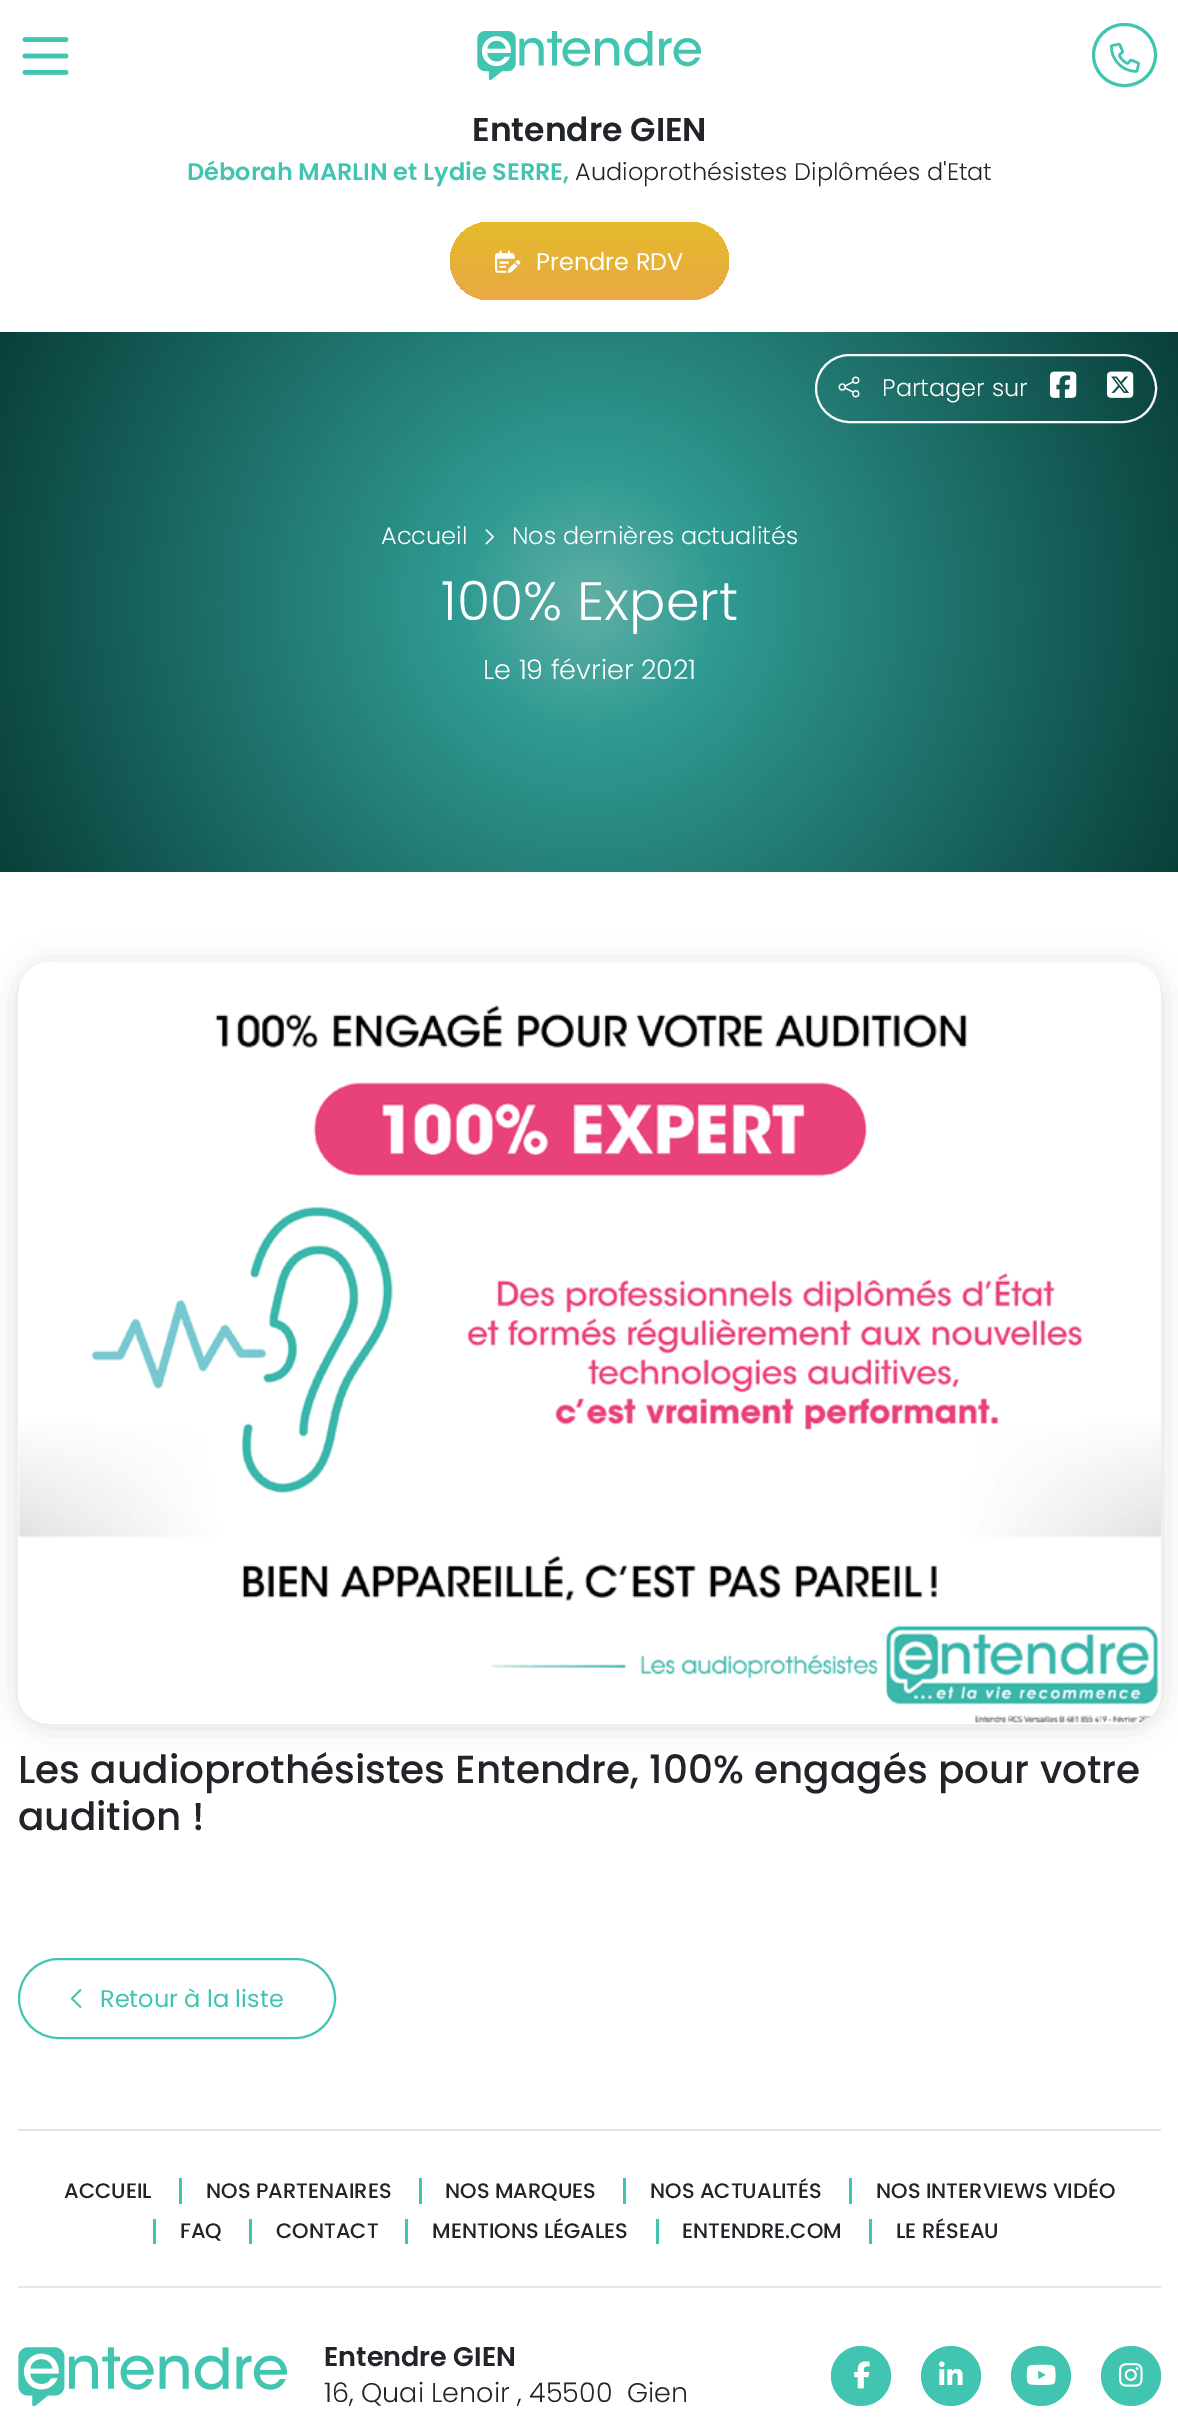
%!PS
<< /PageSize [1178 2420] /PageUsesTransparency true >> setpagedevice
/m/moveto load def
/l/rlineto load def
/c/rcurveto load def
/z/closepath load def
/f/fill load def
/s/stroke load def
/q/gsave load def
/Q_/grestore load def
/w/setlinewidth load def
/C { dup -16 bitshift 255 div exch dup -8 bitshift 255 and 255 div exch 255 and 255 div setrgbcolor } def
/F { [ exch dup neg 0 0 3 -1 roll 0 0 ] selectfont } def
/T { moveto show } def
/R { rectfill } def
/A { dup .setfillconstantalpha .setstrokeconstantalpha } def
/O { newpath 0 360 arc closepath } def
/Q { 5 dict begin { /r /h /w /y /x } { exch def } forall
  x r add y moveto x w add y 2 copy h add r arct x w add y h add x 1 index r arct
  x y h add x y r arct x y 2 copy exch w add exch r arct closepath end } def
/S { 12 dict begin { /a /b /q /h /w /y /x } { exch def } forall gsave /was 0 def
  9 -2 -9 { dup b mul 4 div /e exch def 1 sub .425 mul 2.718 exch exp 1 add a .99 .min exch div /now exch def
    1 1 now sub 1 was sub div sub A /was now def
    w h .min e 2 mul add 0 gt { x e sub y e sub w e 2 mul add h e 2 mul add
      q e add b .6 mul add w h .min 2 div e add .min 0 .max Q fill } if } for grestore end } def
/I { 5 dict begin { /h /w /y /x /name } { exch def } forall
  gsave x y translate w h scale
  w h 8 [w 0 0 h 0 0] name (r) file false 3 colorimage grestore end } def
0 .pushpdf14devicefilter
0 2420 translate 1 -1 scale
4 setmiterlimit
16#FFFFFF C
0 0 1178 2420 R
q
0 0 m 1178 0 l 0 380 l -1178 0 l z 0 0 m 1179 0 l 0 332 l -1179 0 l z eoclip newpath
16#000000 C
0 3 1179 332 0 14.5 .14 S
Q_
(1.rgb) 22 37 47 38 I
(2.rgb) 477 31 224 49 I
/Poppins-SemiBold 33 F
16#212529 C
(Entendre GIEN) 472 141 T
/Poppins-SemiBold 24 F
16#41C4B0 C
(Déborah MARLIN et Lydie SERRE,) 187 180 T
/Poppins-Light 24 F
16#212529 C
(Audioprothésistes Diplômées d'Etat) 575 180 T
16#41C4B0 C
3 w
1093.5 24.5 62 61 30.5 Q s
(3.rgb) 1110 42 30 31 I
q 450 222 279 78 39 Q clip newpath
<< /ShadingType 2 /ColorSpace /DeviceRGB /Coords [590 222 590 300] /Extend [true true] /Function << /FunctionType 2 /Domain [0 1] /C0 [.898 .729 .173] /C1 [.914 .663 .263] /N 1 >> >> shfill Q_
(4.rgb) 495 250 26 23 I
/Poppins-Regular 24 F
16#FFFFFF C
(Prendre RDV) 536 270 T
q 0 332 m 1178 0 l 0 540 l -1178 0 l z clip newpath 590 602 translate 648 648 scale
<< /ShadingType 3 /ColorSpace /DeviceRGB /Coords [0 0 0 0 0 1] /Extend [true true] /Function << /FunctionType 3 /Domain [0 1] /Functions [<< /FunctionType 2 /Domain [0 1] /C0 [.424 .761 .722] /C1 [.208 .678 .639] /N 1 >> << /FunctionType 2 /Domain [0 1] /C0 [.208 .678 .639] /C1 [.039 .275 .255] /N 1 >>] /Bounds [.2] /Encode [0 1 0 1] >> >> shfill Q_
0.1 A
16#000000 C
0 332 1178 540 R
1 A
16#FFFFFF C
2 w
816 355 340 67 33.5 Q s
(5.rgb) 838 376 22 22 I
/Poppins-Light 24 F
(Partager sur) 882 396 T
(6.rgb) 1050 371 27 27 I
(7.rgb) 1107 371 27 27 I
(Accueil) 381 544 T
(8.rgb) 485 529 9 16 I
(Nos dernières actualités) 512 544 T
/Poppins-Light 54 F
(100% Expert) 441 620 T
/Poppins-Light 27 F
(Le 19 février 2021) 483 679 T
q
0 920 m 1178 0 l 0 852 l -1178 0 l z 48 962 m 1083 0 l 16.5 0 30 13.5 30 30 c 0 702 l 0 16.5 -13.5 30 -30 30 c -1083 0 l -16.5 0 -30 -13.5 -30 -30 c 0 -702 l 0 -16.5 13.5 -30 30 -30 c z eoclip newpath
16#000000 C
18 965 1143 762 30 14.5 .14 S
Q_
(9.rgb) 18 1005 1143 718 I
/Poppins-Medium 39 F
16#212529 C
(Les audioprothésistes Entendre, 100% engagés pour votre) 18 1783 T
(audition !) 18 1830 T
16#41C4B0 C
19 1959 316 79 39.5 Q s
(10.rgb) 70 1989 12 19 I
/Poppins-Regular 24 F
(Retour à la liste) 100 2007 T
16#E6E6E6 C
18 2129 1143 2 R
18 2286 1143 2 R
/Poppins-Medium 21 F
16#212529 C
(ACCUEIL) 64 2198 T
16#41C4B0 C
179 2178 3 26 R
16#212529 C
(NOS PARTENAIRES) 206 2198 T
16#41C4B0 C
419 2178 3 26 R
16#212529 C
(NOS MARQUES) 445 2198 T
16#41C4B0 C
623 2178 3 26 R
16#212529 C
(NOS ACTUALITÉS) 650 2198 T
16#41C4B0 C
849 2178 3 26 R
16#212529 C
(NOS INTERVIEWS VIDÉO) 876 2198 T
16#41C4B0 C
153 2219 3 25 R
16#212529 C
(FAQ) 180 2238 T
16#41C4B0 C
249 2219 3 25 R
16#212529 C
(CONTACT) 276 2238 T
16#41C4B0 C
405 2219 3 25 R
16#212529 C
(MENTIONS LÉGALES) 432 2238 T
16#41C4B0 C
656 2219 3 25 R
16#212529 C
(ENTENDRE.COM) 682 2238 T
16#41C4B0 C
869 2219 3 25 R
16#212529 C
(LE RÉSEAU) 896 2238 T
(11.rgb) 18 2347 269 60 I
/Poppins-SemiBold 27 F
(Entendre GIEN) 324 2366 T
/Poppins-Light 27 F
(16, Quai Lenoir , 45500  Gien) 324 2402 T
16#41C4B0 C
861 2376 30 O f
(12.rgb) 854 2361 16 28 I
951 2376 30 O f
(13.rgb) 939 2361 24 24 I
1041 2376 30 O f
(14.rgb) 1026 2364 30 21 I
1131 2376 30 O f
(15.rgb) 1119 2363 24 24 I
.poppdf14devicefilter showpage
